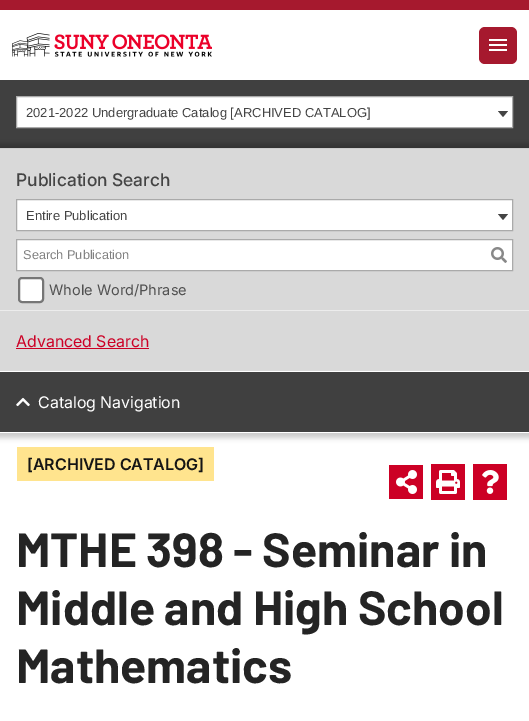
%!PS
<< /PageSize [529 721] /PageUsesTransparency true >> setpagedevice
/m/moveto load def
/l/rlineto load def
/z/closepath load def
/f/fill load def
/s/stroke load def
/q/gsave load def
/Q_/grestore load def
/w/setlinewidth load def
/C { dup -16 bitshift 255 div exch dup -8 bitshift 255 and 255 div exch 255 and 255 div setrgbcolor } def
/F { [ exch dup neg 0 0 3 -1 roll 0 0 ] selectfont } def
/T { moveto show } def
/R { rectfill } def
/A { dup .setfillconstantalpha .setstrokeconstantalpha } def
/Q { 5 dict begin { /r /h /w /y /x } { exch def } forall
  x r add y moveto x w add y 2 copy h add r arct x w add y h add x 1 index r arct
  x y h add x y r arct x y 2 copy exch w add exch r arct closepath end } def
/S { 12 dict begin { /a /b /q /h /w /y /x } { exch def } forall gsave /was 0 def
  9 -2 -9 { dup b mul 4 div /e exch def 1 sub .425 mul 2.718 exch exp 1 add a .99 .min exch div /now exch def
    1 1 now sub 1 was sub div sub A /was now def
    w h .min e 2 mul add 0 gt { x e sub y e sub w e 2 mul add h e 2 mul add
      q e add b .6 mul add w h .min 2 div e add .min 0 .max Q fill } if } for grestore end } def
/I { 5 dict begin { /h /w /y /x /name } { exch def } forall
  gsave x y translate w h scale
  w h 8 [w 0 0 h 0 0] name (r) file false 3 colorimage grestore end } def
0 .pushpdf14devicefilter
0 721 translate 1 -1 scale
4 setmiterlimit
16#FFFFFF C
0 0 529 721 R
16#A6192E C
0 0 529 10 R
(1.rgb) 12 33 200 24 I
479 27 38 37 6 Q f
(2.rgb) 489 39 18 12 I
16#404040 C
0 80 529 68 R
16#FFFFFF C
16.5 96.5 m 496 0 l 0 31 l -496 0 l z q f Q_
16#AAAAAA C
s
/LiberationSans-Regular 13 F
16#444444 C
(2021-2022 Undergraduate Catalog [ARCHIVED CATALOG]) 26 117 T
498 111 m 10 0 l -5 6 l z f
16#000000 C
-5 144 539 294 0 2.5 .2 S
16#D9D9D9 C
0 149 529 222 R
16#FFFFFF C
0 371 529 1 R
/Inter-Medium 17.5 F
16#444444 C
(Publication Search) 16 186 T
16#FFFFFF C
16.5 199.5 m 496 0 l 0 31 l -496 0 l z q f Q_
16#AAAAAA C
s
/LiberationSans-Regular 13 F
16#444444 C
(Entire Publication) 26 220 T
498 214 m 10 0 l -5 6 l z f
16#FFFFFF C
16.5 239.5 m 496 0 l 0 31 l -496 0 l z q f Q_
16#AAAAAA C
s
/LiberationSans-Regular 12.75 F
16#808080 C
(Search Publication) 23 259 T
(3.rgb) 491 247 16 16 I
16#FFFFFF C
19 278 24 24 3 Q q f Q_
16#767676 C
2 w
s
/Inter-Regular 14.5 F
16#515151 C
(Whole Word/Phrase) 49 295 T
16#ECECEC C
0 310 529 1 R
/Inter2-Regular 16 F
16#CC0025 C
(Advanced Search) 16 347 T
16 348 133 1 R
16#404040 C
0 372 529 60 R
16#FFFFFF C
0 432 529 1 R
(4.rgb) 16 397 14 10 I
(Catalog Navigation) 38 408 T
16#FFE48E C
17 447 197 34 R
/Inter-SemiBold 16 F
16#151515 C
([ARCHIVED CATALOG]) 27 470 T
16#CC0025 C
389 465 34 34 R
(5.rgb) 396 470 21 24 I
431 464 34 36 R
(6.rgb) 436 470 24 24 I
473 464 34 36 R
(7.rgb) 482 470 17 24 I
/Barlow-Bold 48 F
16#242424 C
(MTHE 398 - Seminar in) 16 567 T
(Middle and High School) 16 625 T
(Mathematics) 16 683 T
.poppdf14devicefilter showpage
